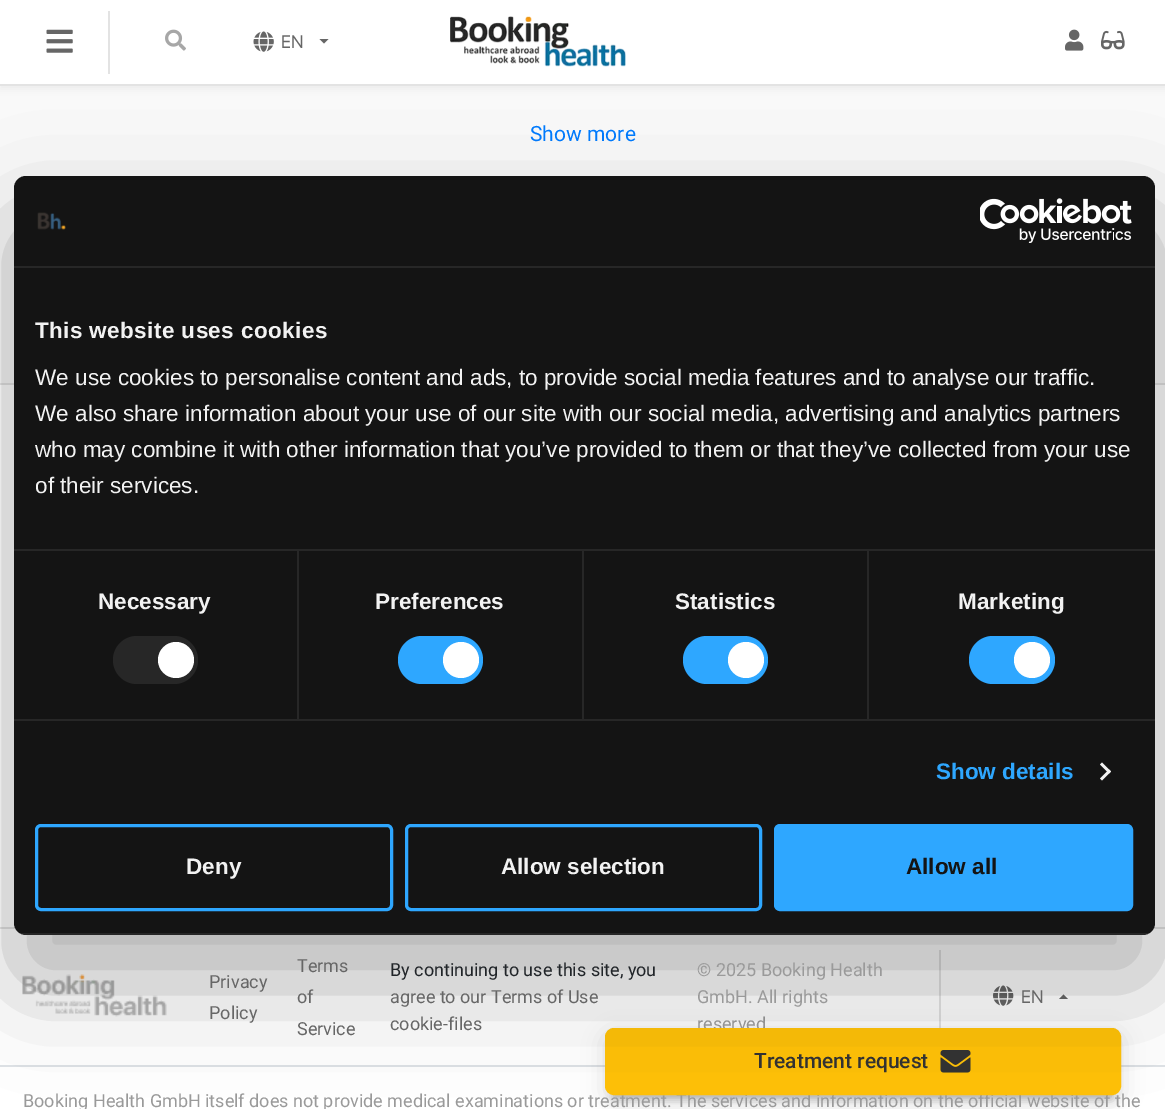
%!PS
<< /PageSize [1165 1109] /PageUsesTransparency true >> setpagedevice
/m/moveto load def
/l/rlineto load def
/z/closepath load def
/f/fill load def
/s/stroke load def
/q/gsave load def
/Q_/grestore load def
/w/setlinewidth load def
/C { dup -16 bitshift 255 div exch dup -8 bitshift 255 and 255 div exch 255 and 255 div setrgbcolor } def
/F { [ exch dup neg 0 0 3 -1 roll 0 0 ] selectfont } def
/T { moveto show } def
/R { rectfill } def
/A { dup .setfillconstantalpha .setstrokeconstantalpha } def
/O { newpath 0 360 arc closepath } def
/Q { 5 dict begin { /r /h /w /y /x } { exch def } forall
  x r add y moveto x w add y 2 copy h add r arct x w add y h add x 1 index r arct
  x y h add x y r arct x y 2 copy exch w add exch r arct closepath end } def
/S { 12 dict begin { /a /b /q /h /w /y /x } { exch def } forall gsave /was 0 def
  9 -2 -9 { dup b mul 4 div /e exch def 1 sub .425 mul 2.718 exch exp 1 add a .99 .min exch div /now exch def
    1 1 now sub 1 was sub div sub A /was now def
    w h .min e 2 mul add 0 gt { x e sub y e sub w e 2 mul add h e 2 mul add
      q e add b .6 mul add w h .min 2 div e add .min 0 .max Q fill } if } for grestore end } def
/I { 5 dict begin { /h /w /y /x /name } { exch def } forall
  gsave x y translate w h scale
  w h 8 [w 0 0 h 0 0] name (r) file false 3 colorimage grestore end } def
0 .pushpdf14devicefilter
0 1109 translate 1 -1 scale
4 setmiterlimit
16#F9F9F9 C
0 0 1165 1109 R
16#000000 C
0 3 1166 86 0 4 .05 S
16#FFFFFF C
0 0 1165 84 R
16#E3E3E3 C
0 84 1165 2 R
(1.rgb) 46 29 27 24 I
108 11 2 63 R
(2.rgb) 165 29 21 22 I
(3.rgb) 253 31 21 21 I
/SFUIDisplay-Regular 18 F
16#666666 C
(EN) 281 48 T
319.5 39 m 9 0 l -4.5 4.5 l z f
(4.rgb) 450 16 176 51 I
(5.rgb) 1065 29 19 22 I
(6.rgb) 1101 30 24 20 I
/Roboto-Regular 21 F
16#007BFF C
(Show more) 530 141 T
16#FFFFFF C
0 385 1165 724 R
16#DEE2E6 C
0 1065 1165 2 R
16#000000 C
612 1047 501 53 1.5 4 .2 S
16#E3E3E3 C
939 950 2 78 R
(11.rgb) 993 985 21 21 I
16#000000 C
605 1034 516 67 9 11 .12 S
/Roboto-Regular 18 F
16#9A9A9A C
(reserved) 697 1030 T
(Booking Health GmbH itself does not provide medical examinations or treatment. The services and information on the official website of the) 23 1107 T
16#FFC107 C
606.5 1029.5 513 64 7.5 Q q f Q_
3 w
s
/Roboto-Medium 21 F
16#333333 C
(Treatment request) 754 1068 T
(7.rgb) 940 1050 31 23 I
16#E3E3E3 C
0 383 1165 2 R
0 927 1165 2 R
(10.rgb) 22 974 145 43 I
16#666666 C
1068 999 m -9 0 l 4.5 -4.5 l z f
16#000000 C
14 224 1141 759 12 51 .3 S
16#141414 C
14 176 1141 759 12 Q f
16#272727 C
14 266 1141 2 R
(8.rgb) 37 212 29 18 I
(9.rgb) 980 198 152 45 I
14 549 1141 2 R
/LiberationSans-Bold 22.5 F
16#F2F2F2 C
35 338 m .4 0 (This website uses cookies) ashow
/LiberationSans-Regular 22.5 F
(We use cookies to personalise content and ads, to provide social media features and to analyse our traffic.) 35 385 T
(We also share information about your use of our site with our social media, advertising and analytics partners) 35 421 T
(who may combine it with other information that you’ve provided to them or that they’ve collected from your use) 35 457 T
(of their services.) 35 493 T
16#272727 C
14 719 1141 2 R
297 551 2 168 R
/LiberationSans-Bold 22.5 F
16#F2F2F2 C
(Necessary) 98 609 T
16#272727 C
113 636 85 48 24 Q f
16#FFFFFF C
176 660 18 O f
16#272727 C
582 551 2 168 R
16#F2F2F2 C
(Preferences) 375 609 T
16#2EA7FF C
398 636 85 48 24 Q f
16#FFFFFF C
461 660 18 O f
16#272727 C
867 551 2 168 R
16#F2F2F2 C
(Statistics) 675 609 T
16#2EA7FF C
683 636 85 48 24 Q f
16#FFFFFF C
746 660 18 O f
16#F2F2F2 C
(Marketing) 958 609 T
16#2EA7FF C
969 636 86 48 24 Q f
16#FFFFFF C
1032 660 18 O f
16#2EA7FF C
(Show details) 936 779 T
16#F2F2F2 C
1102 762.5 m 9 9 l -2 2 l -9 -9 l z f
1109 769.5 m 2 2 l -9 9 l -2 -2 l z f
q
14 176 1141 759 12 Q clip newpath
0.08 A
16#FFFFFF C
14 933 1141 2 R
Q_
16#2EA7FF C
36.5 825.5 355 84 4.5 Q s
16#F2F2F2 C
(Deny) 186 874 T
16#2EA7FF C
406.5 825.5 354 84 4.5 Q s
16#F2F2F2 C
(Allow selection) 501 874 T
16#2EA7FF C
775.5 825.5 356 84 4.5 Q q f Q_
s
16#141414 C
(Allow all) 906 874 T
/Roboto-Regular 18 F
16#666666 C
(Privacy) 209 988 T
(Policy) 209 1019 T
(Terms) 297 972 T
(of) 297 1003 T
(Service) 297 1035 T
16#212529 C
(By continuing to use this site, you) 390 976 T
16#666666 C
(agree to our Terms of Use) 390 1003 T
(cookie-files) 390 1030 T
16#9A9A9A C
(© 2025 Booking Health) 697 976 T
(GmbH. All rights) 697 1003 T
/SFUIDisplay-Regular 18 F
16#666666 C
(EN) 1021 1003 T
.poppdf14devicefilter showpage
